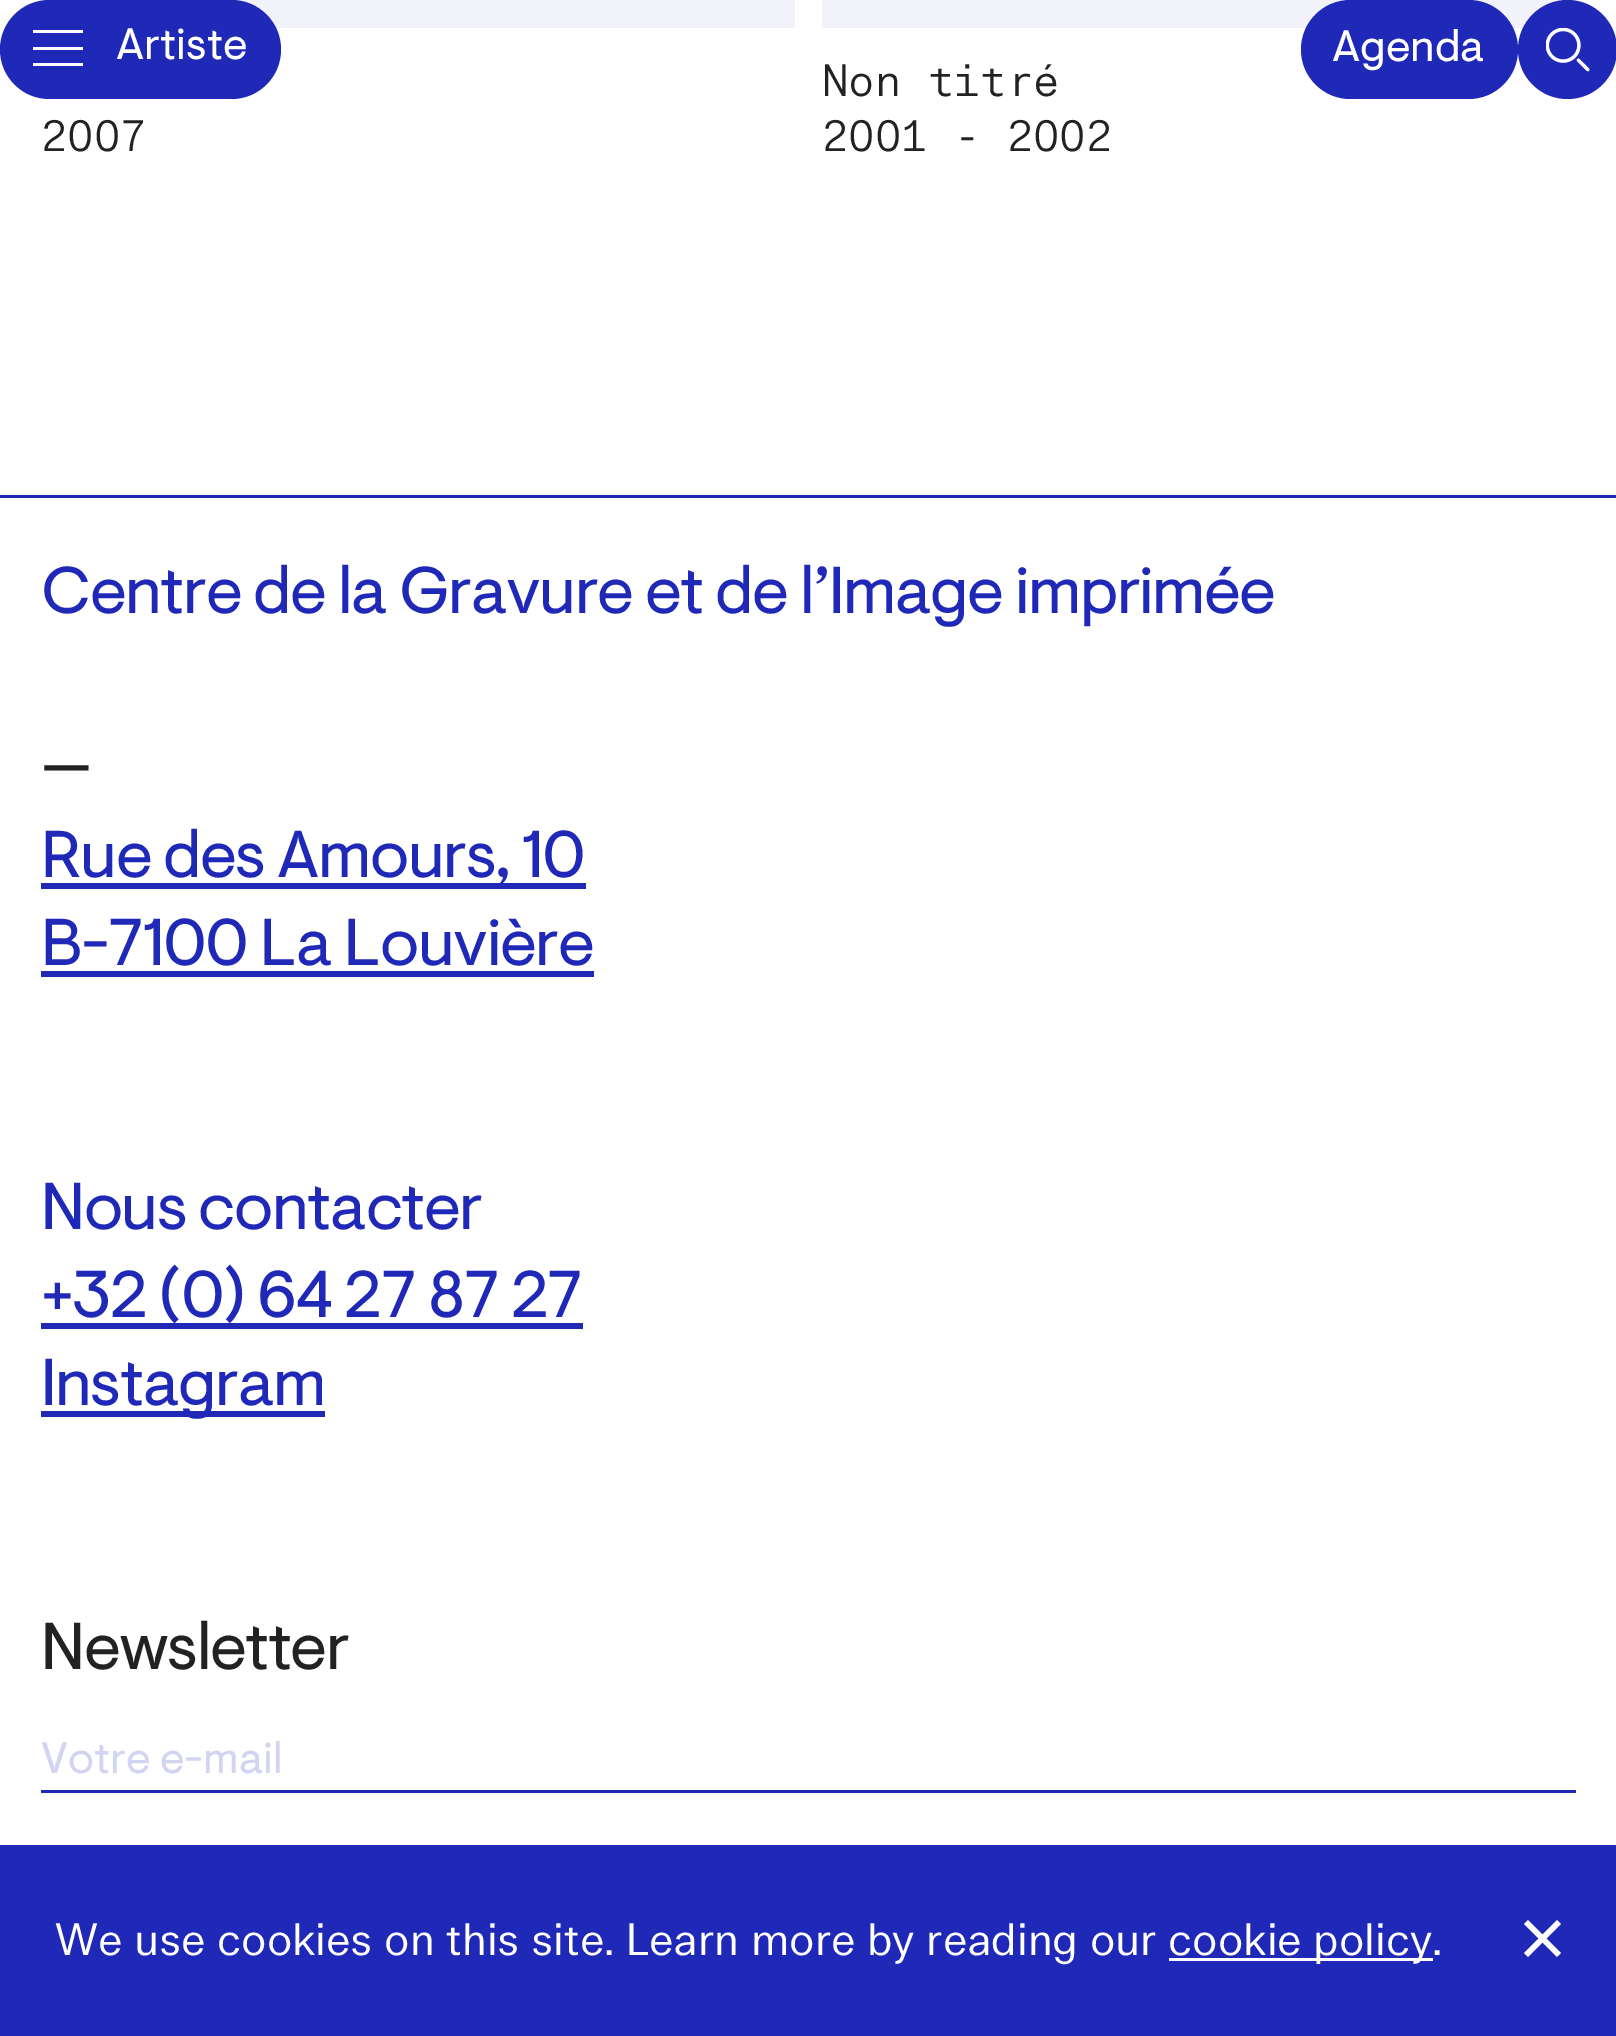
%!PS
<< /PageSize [1616 2036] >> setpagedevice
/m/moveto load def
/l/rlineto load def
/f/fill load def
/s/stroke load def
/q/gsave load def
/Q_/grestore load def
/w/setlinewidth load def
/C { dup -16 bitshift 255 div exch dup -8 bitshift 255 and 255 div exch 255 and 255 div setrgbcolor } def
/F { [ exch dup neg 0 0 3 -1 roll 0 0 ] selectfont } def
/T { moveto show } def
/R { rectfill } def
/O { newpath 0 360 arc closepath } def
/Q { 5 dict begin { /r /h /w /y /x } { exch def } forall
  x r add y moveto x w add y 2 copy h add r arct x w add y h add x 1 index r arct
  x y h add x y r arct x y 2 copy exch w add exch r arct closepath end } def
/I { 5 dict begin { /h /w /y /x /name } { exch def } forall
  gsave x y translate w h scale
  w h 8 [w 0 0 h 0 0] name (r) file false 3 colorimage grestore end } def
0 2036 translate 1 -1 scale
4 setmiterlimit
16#FFFFFF C
0 0 1616 2036 R
16#F2F2FB C
41 0 754 28 R
16#2029B7 C
0 0 281 99 49.5 Q f
16#FFFFFF C
33 47 50 3 R
33 30 50 3 R
33 63 50 3 R
/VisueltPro-Regular 44 F
(Artiste) 116 59 T
16#F2F2FB C
822 0 754 28 R
16#2029B7 C
1301 0 217 99 49.5 Q f
16#FFFFFF C
(Agenda) 1332 61 T
16#2029B7 C
1567.5 49.5 49.5 O f
(1.rgb) 1546 28 44 44 I
/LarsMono-Regular 44 F
16#222222 C
(2007) 41 151 T
(Non titré) 822 96 T
(2001 - 2002) 822 151 T
16#2029B7 C
0 495 1616 3 R
/VisueltPro-Regular 66 F
41 613 m -1.4 0 (Centre de la Gravure et de l’Image imprimée) ashow
16#222222 C
41 789 m -1.4 0 (—) ashow
16#2029B7 C
41 883 545 6 R
41 877 m -1.4 0 (Rue des Amours, 10) ashow
41 965 m -1.4 0 (B-7100 La Louvière) ashow
41 971 553 6 R
41 1229 m -1.4 0 (Nous contacter) ashow
41 1323 542 6 R
41 1317 m -1.4 0 (+32 \(0\) 64 27 87 27) ashow
41 1411 284 6 R
41 1405 m -1.4 0 (Instagram) ashow
16#222222 C
41 1669 m -1.4 0 (Newsletter) ashow
16#2029B7 C
41 1790 1535 3 R
q
41 1741 1535 44 rectclip
/VisueltPro-Regular 44 F
16#D2D4F1 C
(Votre e-mail) 41 1773 T
Q_
0 1845 1616 191 R
/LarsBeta-Regular 44 F
16#FFFFFF C
(We use cookies on this site. Learn more by reading our) 55 1955 T
1169 1958 264 3 R
(cookie policy.) 1168 1955 T
5.5 w
1526 1955 m 33 -33 l 1559 1955 m -33 -33 l s
showpage
